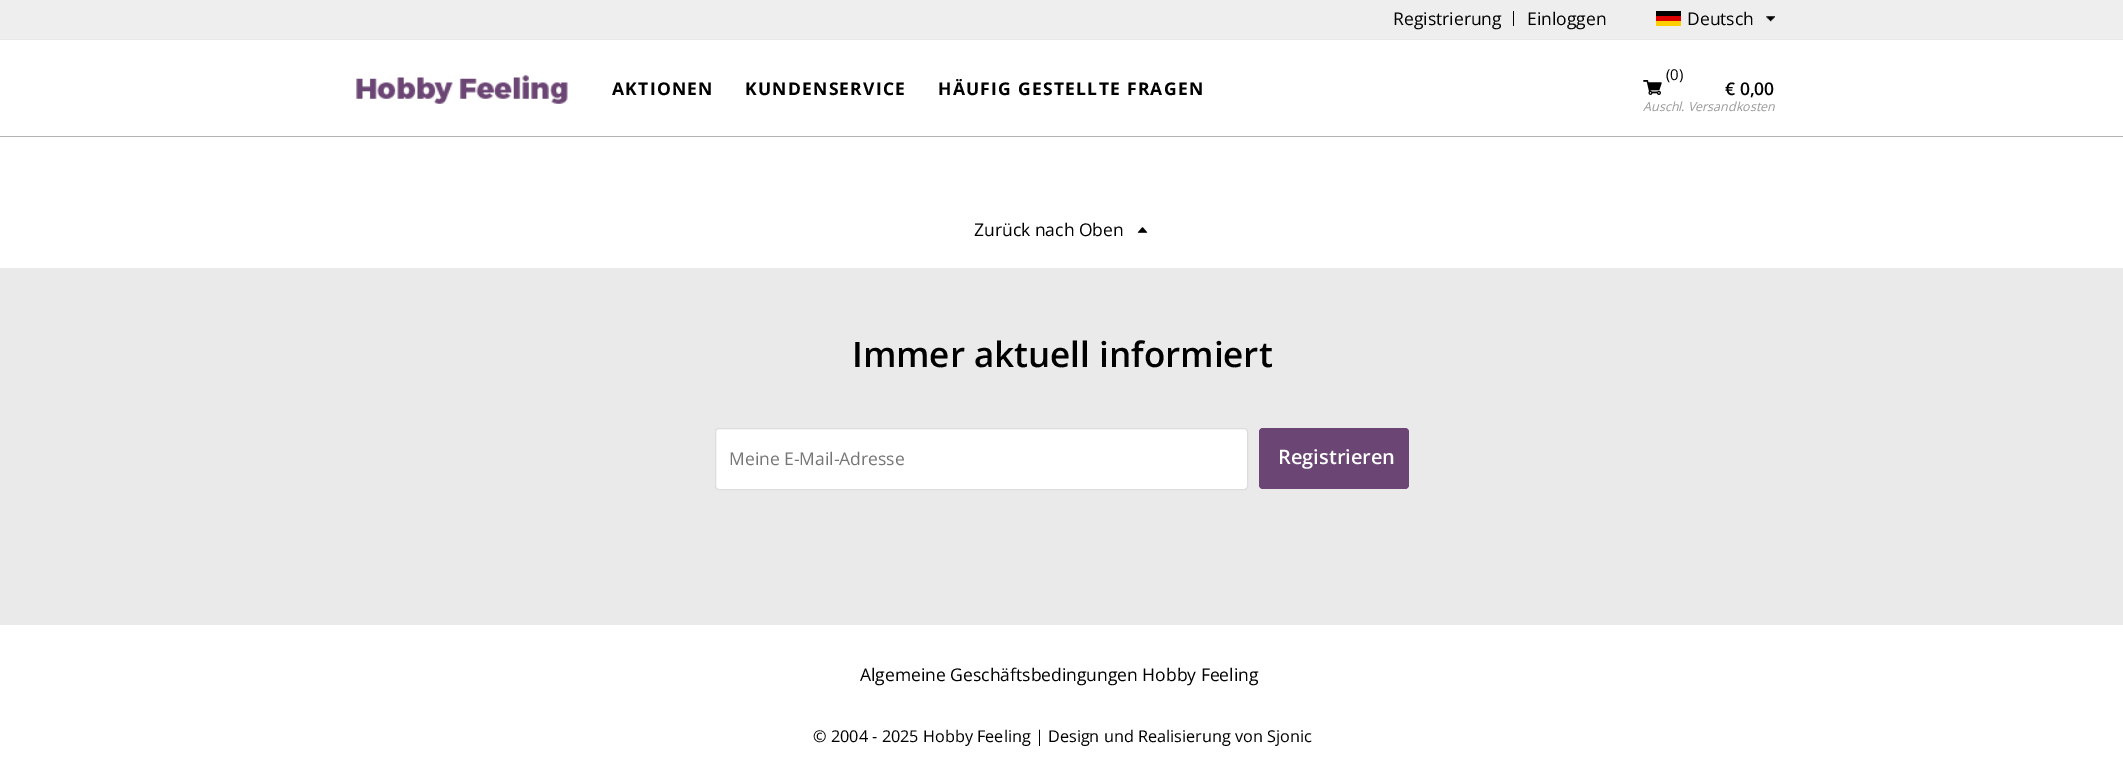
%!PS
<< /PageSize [2123 760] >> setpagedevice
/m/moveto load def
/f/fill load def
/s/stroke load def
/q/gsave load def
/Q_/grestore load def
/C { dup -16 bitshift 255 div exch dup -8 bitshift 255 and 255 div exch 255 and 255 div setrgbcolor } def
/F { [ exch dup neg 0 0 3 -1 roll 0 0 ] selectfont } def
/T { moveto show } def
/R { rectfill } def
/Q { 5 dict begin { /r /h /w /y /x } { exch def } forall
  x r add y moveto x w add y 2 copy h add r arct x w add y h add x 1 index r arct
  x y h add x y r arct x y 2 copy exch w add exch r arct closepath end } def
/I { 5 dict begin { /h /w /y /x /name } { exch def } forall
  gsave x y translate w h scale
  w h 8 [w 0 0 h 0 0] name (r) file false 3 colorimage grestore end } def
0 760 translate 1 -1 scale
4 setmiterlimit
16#FFFFFF C
0 0 2123 760 R
16#EEEEEE C
0 0 2123 39 R
16#E9E8E6 C
0 39 2123 1 R
/OpenSans-Regular 17.5 F
16#000000 C
(Registrierung) 1393 25 T
1513 11 1 15 R
(Einloggen) 1527 25 T
(1.rgb) 1766 16 9 6 I
1656 11 25 5 R
16#DD0000 C
1656 16 25 5 R
16#FFCE00 C
1656 21 25 5 R
16#000000 C
(Deutsch) 1687 25 T
16#B3B3B3 C
0 136 2123 1 R
(2.rgb) 356 74 212 30 I
/OpenSans-Bold 17.5 F
16#000000 C
612 95 m 1.25 0 (AKTIONEN) ashow
745 95 m 1.25 0 (KUNDENSERVICE) ashow
938 95 m 1.25 0 (HÄUFIG GESTELLTE FRAGEN) ashow
/OpenSans-Regular 15 F
(\(0\)) 1666 80 T
(3.rgb) 1643 80 19 15 I
/OpenSans-SemiBold 17.5 F
(€ 0,00) 1725 95 T
/OpenSans-Italic 12.5 F
16#999999 C
(Auschl. Versandkosten) 1643 111 T
/OpenSans-Regular 17.5 F
16#000000 C
(Zurück nach Oben) 974 236 T
(4.rgb) 1137 227 11 6 I
16#EAEAEA C
0 268 2123 357 R
/OpenSans-SemiBold 35 F
16#000000 C
(Immer aktuell informiert) 852 367 T
16#FFFFFF C
715.5 428.5 532 61 3.5 Q q f Q_
16#DDDDDD C
s
/OpenSans-Regular 17.5 F
16#757575 C
(Meine E-Mail-Adresse) 729 465 T
16#6B4574 C
1259 428 150 61 4 Q f
/OpenSans-SemiBold 20 F
16#FFFFFF C
(Registrieren) 1278 464 T
/OpenSans-Regular 17.5 F
16#000000 C
(Algemeine Geschäftsbedingungen Hobby Feeling) 860 681 T
/OpenSans-Regular 16.25 F
(© 2004 - 2025 Hobby Feeling | Design und Realisierung von Sjonic) 813 742 T
showpage
